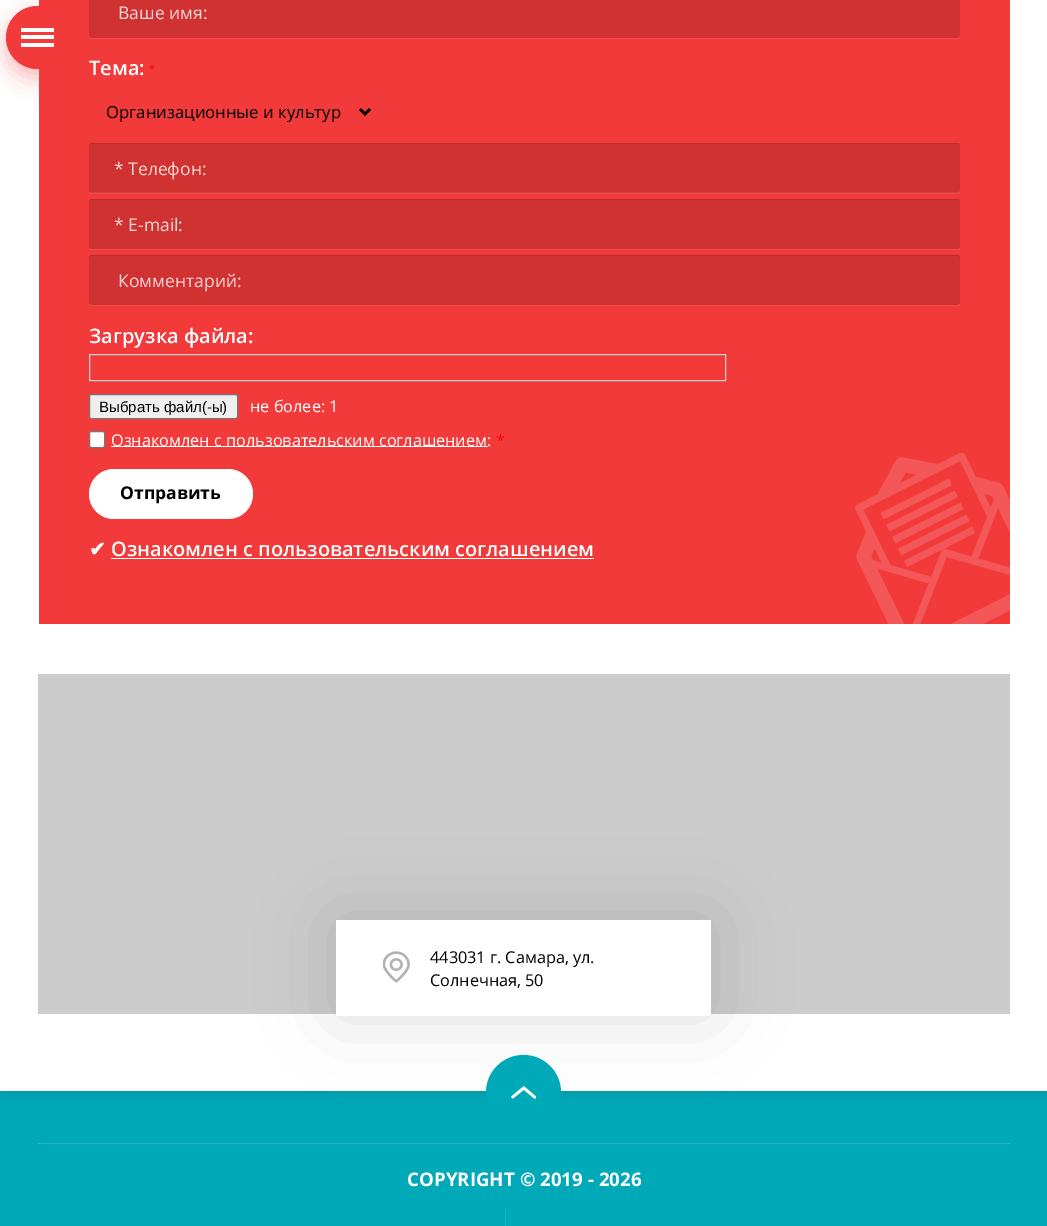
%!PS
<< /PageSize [1047 1226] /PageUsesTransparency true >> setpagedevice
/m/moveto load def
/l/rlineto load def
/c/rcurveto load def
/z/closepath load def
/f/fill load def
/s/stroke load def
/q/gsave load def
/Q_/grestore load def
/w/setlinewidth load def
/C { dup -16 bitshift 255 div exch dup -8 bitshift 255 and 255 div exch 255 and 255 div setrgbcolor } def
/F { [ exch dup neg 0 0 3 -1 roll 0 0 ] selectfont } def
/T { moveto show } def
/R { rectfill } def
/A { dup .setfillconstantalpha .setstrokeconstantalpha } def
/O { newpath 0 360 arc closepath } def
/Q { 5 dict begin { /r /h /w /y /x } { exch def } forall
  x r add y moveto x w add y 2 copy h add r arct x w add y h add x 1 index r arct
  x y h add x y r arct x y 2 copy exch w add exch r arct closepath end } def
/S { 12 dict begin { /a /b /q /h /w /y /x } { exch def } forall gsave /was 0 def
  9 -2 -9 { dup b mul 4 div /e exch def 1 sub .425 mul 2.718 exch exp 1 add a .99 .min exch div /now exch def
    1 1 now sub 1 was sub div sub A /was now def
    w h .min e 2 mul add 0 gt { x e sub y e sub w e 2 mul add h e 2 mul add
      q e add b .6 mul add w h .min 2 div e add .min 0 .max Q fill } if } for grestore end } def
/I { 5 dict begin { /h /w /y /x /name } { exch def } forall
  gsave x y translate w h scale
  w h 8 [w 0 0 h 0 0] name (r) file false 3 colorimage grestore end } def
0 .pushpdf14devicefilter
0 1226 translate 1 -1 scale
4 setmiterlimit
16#00A9B8 C
0 0 1047 1226 R
16#000000 C
0 -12 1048 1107 0 4 .08 S
16#FFFFFF C
0 0 1047 1091 R
16#F23A3A C
39 0 971 624 R
16#F34E4E C
89 36 m 0 2 1 3 3 3 c 866 0 l 1 0 2 -1 2 -3 c 0 -1 l 0 1 -1 3 -2 3 c -867 0 l -1 0 -2 -1 -2 -2 c z f
0.14 A
16#000000 C
89 -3 871 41 2.5 Q f
1 A
16#F23A3A C
6 15 63 63 31.5 11 .35 S
37.5 37.5 31.5 O f
16#FFFFFF C
21 28 33 4 R
21 35 33 4 R
21 43 33 4 R
(1.rgb) 855 453 155 171 I
/OpenSans-Regular 17.5 F
16#F6D6D6 C
(Ваше имя:) 118 19 T
/OpenSans-SemiBold 20 F
16#FFFFFF C
(Тема:) 89 75 T
/LiberationSans-Regular 15 F
16#FF0000 C
(*) 149 75 T
16#000000 C
2.5 w
360 109 m 5 5 l 5 -5 l s
/OpenSans-Regular 16.7 F
(Организационные и культур) 106 118 T
16#F34E4E C
89 191 m 0 1 l 0 1 1 2 3 2 c 866 0 l 1 0 2 -1 2 -2 c 0 -2 l 0 1 -1 2 -2 2 c -867 0 l -1 0 -2 0 -2 -1 c z f
0.14 A
16#000000 C
89 143 871 50 2.5 Q f
0.1 A
91 144 m 867 0 l 1 0 2 1 2 2 c 0 -2 -1 -3 -2 -3 c -866 0 l -2 0 -3 1 -3 3 c 0 -1 1 -2 2 -2 c z f
/OpenSans-Regular 17.5 F
1 A
16#F6D6D6 C
(* Телефон:) 114 175 T
16#F34E4E C
89 247 m 0 1 l 0 1 1 2 3 2 c 866 0 l 2 0 2 -2 2 -4 c 0 2 -1 3 -2 3 c -867 0 l -1 0 -2 -1 -2 -2 c z f
0.14 A
16#000000 C
89 199 871 50 2.5 Q f
0.1 A
91 200 m 867 0 l 1 0 2 1 2 2 c 0 -2 -1 -3 -2 -3 c -866 0 l -2 0 -3 1 -3 3 c 0 -1 1 -2 2 -2 c z f
1 A
16#F6D6D6 C
(* E-mail:) 114 231 T
16#F34E4E C
89 304 m 0 1 1 2 3 2 c 866 0 l 1 0 2 -1 2 -2 c 0 -2 l 0 2 -1 3 -2 3 c -867 0 l -1 0 -2 -1 -2 -1 c z f
0.14 A
16#000000 C
89 255 871 50 2.5 Q f
0.1 A
91 256 m 867 0 l 1 0 2 1 2 3 c 0 -1 l 0 -2 -1 -3 -2 -3 c -866 0 l -2 0 -3 1 -3 3 c 0 1 l 0 -2 1 -3 2 -3 c z f
1 A
16#F6D6D6 C
(Комментарий:) 118 287 T
/OpenSans-SemiBold 20 F
16#FFFFFF C
(Загрузка файла:) 89 343 T
16#CCCCCC C
1 w
89.5 354.5 636 26 rectstroke
16#EFEFEF C
89.5 394.5 148 24 2 Q q f Q_
16#767676 C
s
/LiberationSans-Regular 15 F
16#000000 C
(Выбрать файл\(-ы\)) 99 412 T
/OpenSans-Regular 16.25 F
16#FFFFFF C
(не более: 1) 250 412 T
89.5 431.5 15 16 2 Q q f Q_
16#767676 C
s
16#FFFFFF C
111 446 377 1 R
(Ознакомлен с пользовательским соглашением:) 111 446 T
16#FF0000 C
(*) 496 446 T
16#FFFFFF C
89 469 164 50 25 Q f
/OpenSans-Bold 17.5 F
16#000000 C
(Отправить) 120 499 T
/DejaVuSans-Bold 20 F
16#FFFFFF C
(✔) 89 556 T
/OpenSans-SemiBold 20 F
(Ознакомлен с пользовательским соглашением) 111 556 T
111 558 483 1 R
16#CCCCCC C
38 674 972 340 R
16#000000 C
336 920 375 96 0 37 .14 S
16#FFFFFF C
336 920 375 96 R
(2.rgb) 383 951 27 32 I
/OpenSans-Regular 16.25 F
16#000000 C
(443031 г. Самара, ул.) 430 963 T
(Солнечная, 50) 430 986 T
16#00A9B8 C
523.5 1092.5 37.5 O f
(3.rgb) 511 1086 25 13 I
16#26B6C3 C
38 1143 972 1 R
/OpenSans-Bold 18.75 F
16#FFFFFF C
(COPYRIGHT © 2019 - 2026) 407 1186 T
16#1AB2BF C
505 1209 1 17 R
.poppdf14devicefilter showpage
